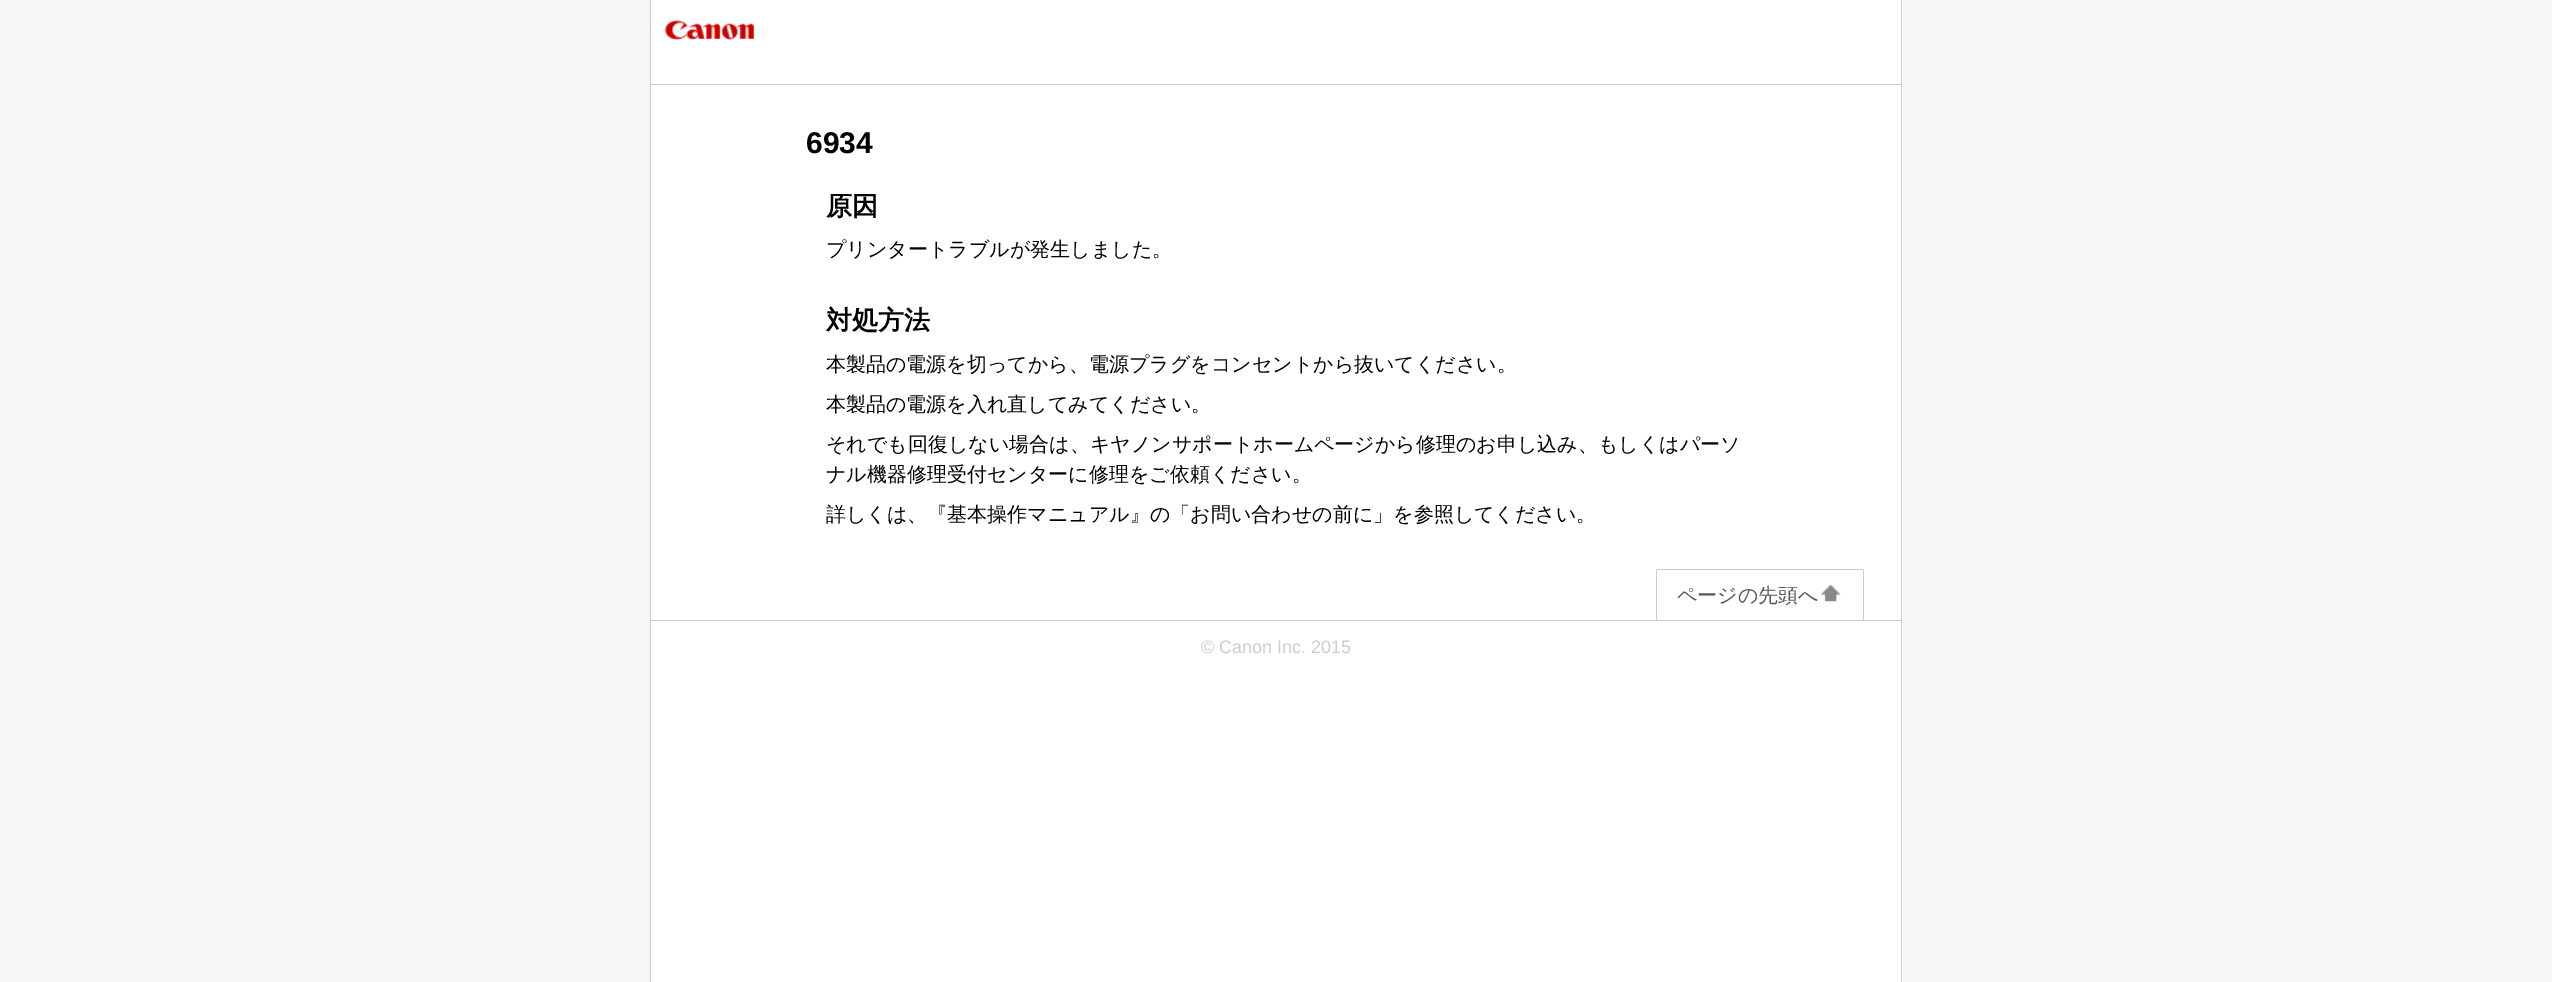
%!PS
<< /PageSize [2552 982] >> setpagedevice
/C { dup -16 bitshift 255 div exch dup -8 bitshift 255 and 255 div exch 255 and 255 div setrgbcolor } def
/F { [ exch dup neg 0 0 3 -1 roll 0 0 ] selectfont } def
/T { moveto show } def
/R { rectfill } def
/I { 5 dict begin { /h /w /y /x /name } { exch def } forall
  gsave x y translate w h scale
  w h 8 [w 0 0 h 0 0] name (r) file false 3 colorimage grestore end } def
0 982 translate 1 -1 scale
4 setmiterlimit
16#F6F6F6 C
0 0 2552 982 R
16#FFFFFF C
651 0 1252 982 R
16#CCCCCC C
1901 0 1 982 R
650 0 1 982 R
(1.rgb) 664 19 90 22 I
651 84 1250 1 R
/LiberationSans-Bold 30 F
16#000000 C
(6934) 806 153 T
/WenQuanYiZenHei-Bold 26 F
(原因) 826 215 T
/WenQuanYiZenHei-Medium 20 F
(プリンタートラブルが発生しました。) 826 256 T
/WenQuanYiZenHei-Bold 26 F
(対処方法) 826 329 T
/WenQuanYiZenHei-Medium 20 F
(本製品の電源を切ってから、電源プラグをコンセントから抜いてください。) 826 371 T
(本製品の電源を入れ直してみてください。) 826 411 T
(それでも回復しない場合は、キヤノンサポートホームページから修理のお申し込み、もしくはパーソ) 826 451 T
(ナル機器修理受付センターに修理をご依頼ください。) 826 481 T
(詳しくは、『基本操作マニュアル』の「お問い合わせの前に」を参照してください。) 826 521 T
16#CCCCCC C
651 620 1250 1 R
1656 569 208 1 R
1863 569 1 51 R
1656 569 1 51 R
16#555555 C
(ページの先頭へ) 1677 602 T
(2.rgb) 1820 585 21 17 I
/LiberationSans-Regular 18 F
16#CCCCCC C
(© Canon Inc. 2015) 1201 653 T
showpage
